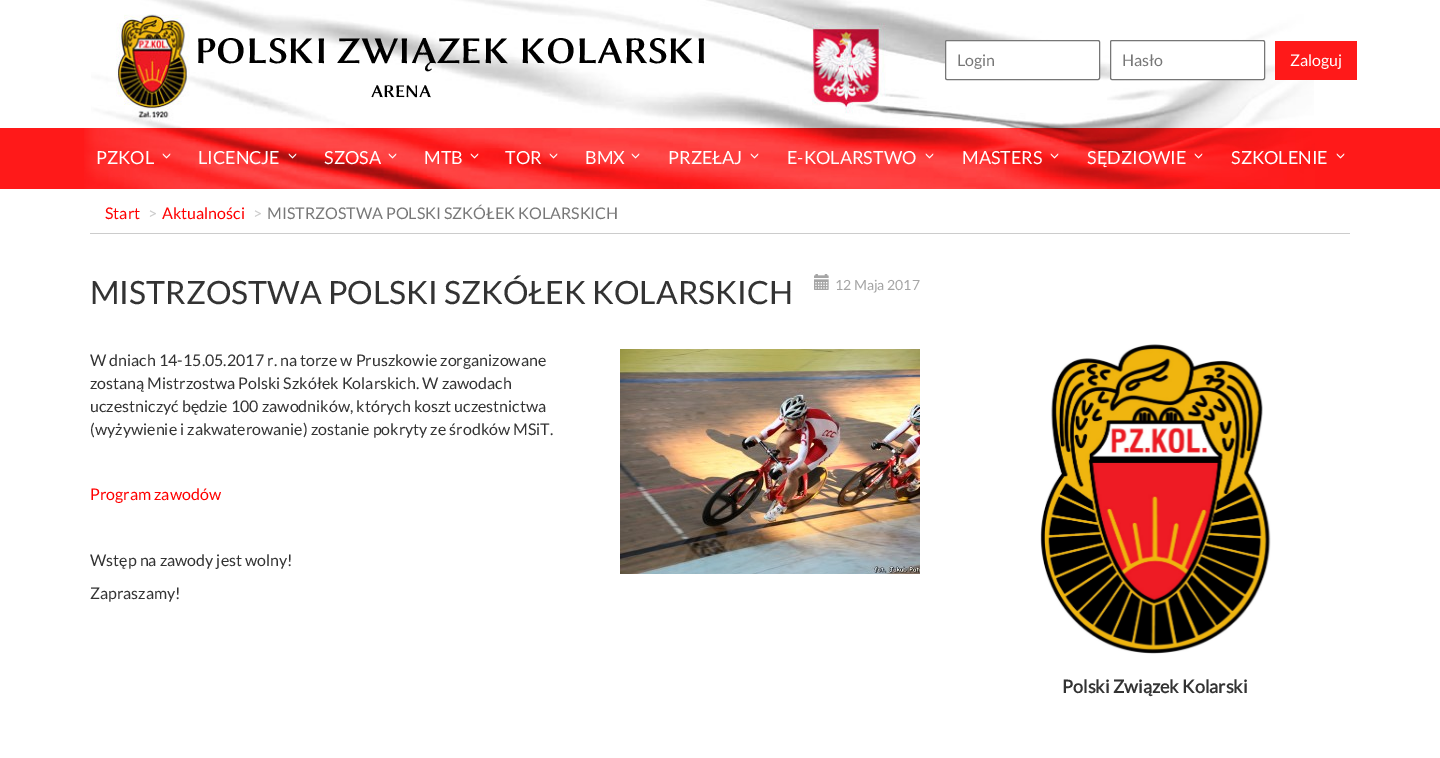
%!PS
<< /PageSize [1440 758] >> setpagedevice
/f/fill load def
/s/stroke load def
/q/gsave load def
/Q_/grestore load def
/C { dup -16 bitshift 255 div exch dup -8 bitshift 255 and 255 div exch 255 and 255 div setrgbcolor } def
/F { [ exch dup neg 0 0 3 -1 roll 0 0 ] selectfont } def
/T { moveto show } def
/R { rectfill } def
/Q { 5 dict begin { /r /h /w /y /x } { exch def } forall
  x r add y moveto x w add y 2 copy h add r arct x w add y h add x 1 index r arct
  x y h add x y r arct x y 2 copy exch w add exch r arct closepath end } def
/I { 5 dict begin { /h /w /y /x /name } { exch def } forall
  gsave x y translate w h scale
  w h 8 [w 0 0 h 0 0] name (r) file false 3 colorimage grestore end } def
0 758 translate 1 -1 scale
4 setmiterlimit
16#FFFFFF C
0 0 1440 758 R
(1.rgb) 91 0 1223 128 I
/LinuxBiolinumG-Bold 38 F
16#000000 C
(POLSKI ZWIĄZEK KOLARSKI) 195 63 T
/LinuxBiolinumG-Bold 18 F
(ARENA) 371 97 T
16#FFFFFF C
945.5 40.5 154 39 1.5 Q q f Q_
16#767676 C
s
/Lato-Regular 16 F
16#777777 C
(Login) 957 66 T
16#FFFFFF C
1110.5 40.5 154 39 1.5 Q q f Q_
16#767676 C
s
16#777777 C
(Hasło) 1122 66 T
16#FF1919 C
1275 41 82 39 R
16#FFFFFF C
(Zaloguj) 1290 66 T
16#FF1919 C
0 128 1440 61 R
(2.rgb) 84 128 1231 61 I
/Lato-Regular 18 F
16#FFFFFF C
(PZKOL) 96 164 T
(3.rgb) 162 153 9 6 I
(LICENCJE) 198 164 T
(4.rgb) 288 153 9 6 I
(SZOSA) 324 164 T
(5.rgb) 388 153 9 6 I
(MTB) 424 164 T
(6.rgb) 470 153 9 6 I
(TOR) 505 164 T
(7.rgb) 549 153 9 6 I
(BMX) 585 164 T
(8.rgb) 631 153 9 6 I
(PRZEŁAJ) 668 164 T
(9.rgb) 750 153 9 6 I
(E-KOLARSTWO) 787 164 T
(10.rgb) 925 153 9 6 I
(MASTERS) 962 164 T
(11.rgb) 1050 153 9 6 I
(SĘDZIOWIE) 1087 164 T
(12.rgb) 1194 153 9 6 I
(SZKOLENIE) 1231 164 T
(13.rgb) 1336 153 9 6 I
16#CCCCCC C
90 233 1260 1 R
/Lato-Regular 16 F
16#FF0000 C
(Start) 105 219 T
16#CCCCCC C
(>) 148 219 T
16#FF0000 C
(Aktualności) 162 219 T
16#CCCCCC C
(>) 253 219 T
16#777777 C
(MISTRZOSTWA POLSKI SZKÓŁEK KOLARSKICH) 267 219 T
/Lato-Regular 32 F
16#333333 C
(MISTRZOSTWA POLSKI SZKÓŁEK KOLARSKICH) 90 304 T
(14.rgb) 814 274 15 16 I
/Lato-Regular 14 F
16#A5A5A5 C
(12 Maja 2017) 835 290 T
/Lato-Regular 16 F
16#333333 C
(W dniach 14-15.05.2017 r. na torze w Pruszkowie zorganizowane) 90 366 T
(zostaną Mistrzostwa Polski Szkółek Kolarskich. W zawodach) 90 389 T
(uczestniczyć będzie 100 zawodników, których koszt uczestnictwa) 90 412 T
(\(wyżywienie i zakwaterowanie\) zostanie pokryty ze środków MSiT.) 90 435 T
(15.rgb) 620 349 300 225 I
16#FF0000 C
(Program zawodów) 90 500 T
16#333333 C
(Wstęp na zawody jest wolny!) 90 566 T
(Zapraszamy!) 90 599 T
(16.rgb) 1040 344 231 310 I
/Lato-Bold 18 F
(Polski Związek Kolarski) 1062 693 T
showpage
